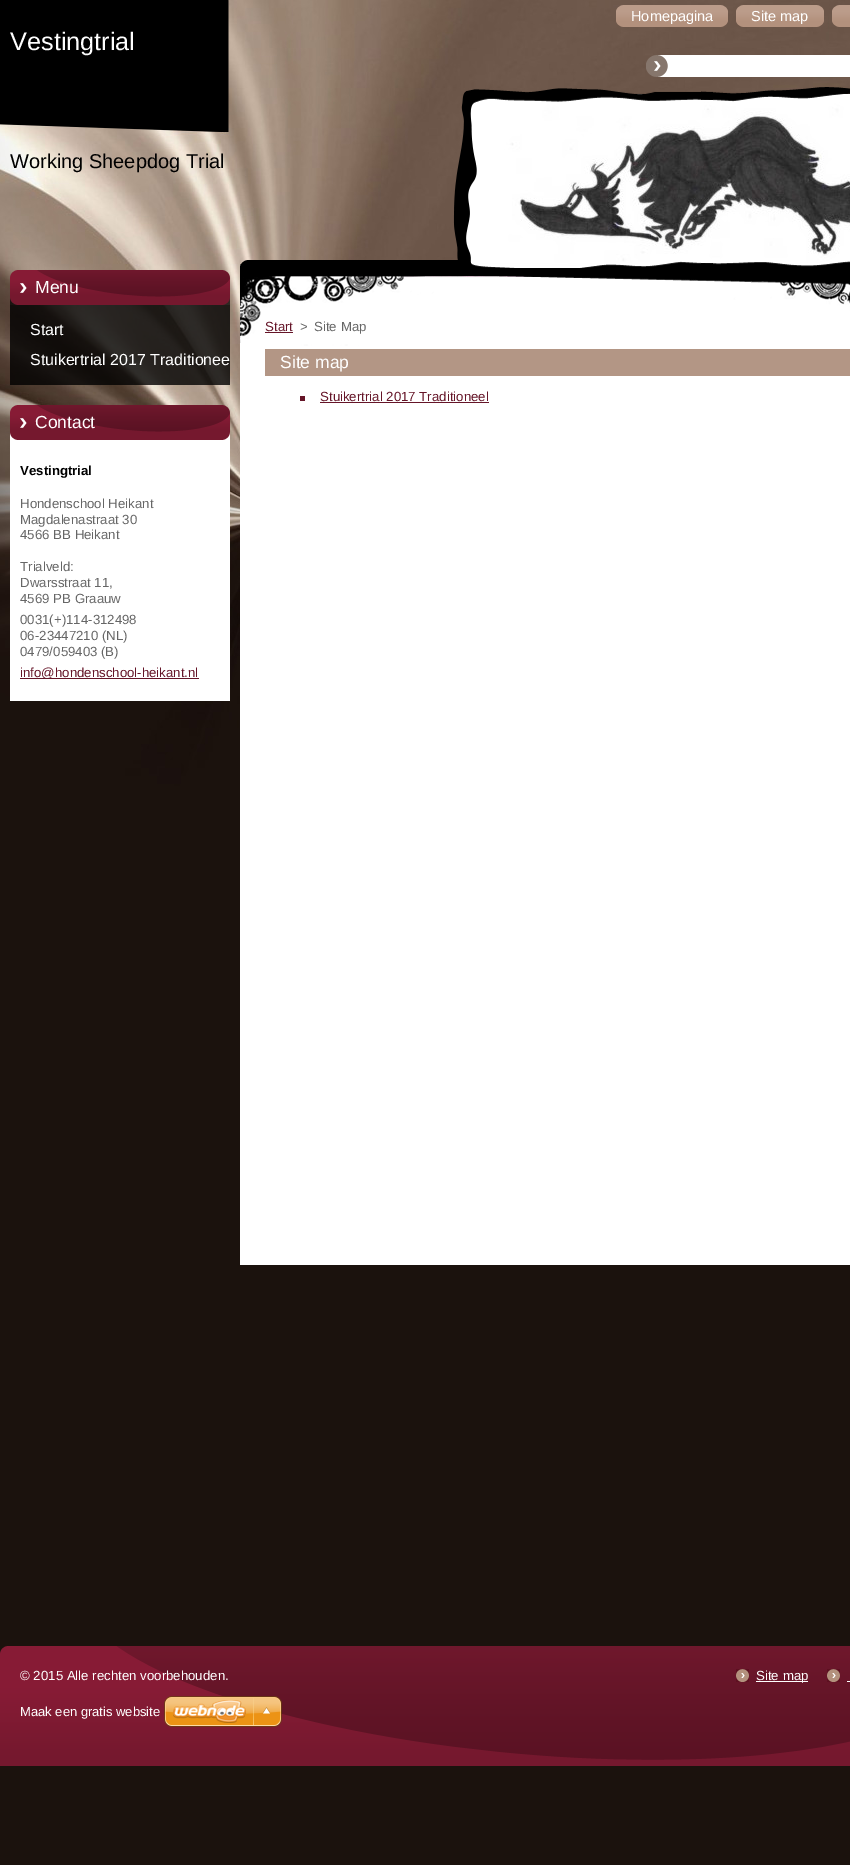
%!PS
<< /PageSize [850 1865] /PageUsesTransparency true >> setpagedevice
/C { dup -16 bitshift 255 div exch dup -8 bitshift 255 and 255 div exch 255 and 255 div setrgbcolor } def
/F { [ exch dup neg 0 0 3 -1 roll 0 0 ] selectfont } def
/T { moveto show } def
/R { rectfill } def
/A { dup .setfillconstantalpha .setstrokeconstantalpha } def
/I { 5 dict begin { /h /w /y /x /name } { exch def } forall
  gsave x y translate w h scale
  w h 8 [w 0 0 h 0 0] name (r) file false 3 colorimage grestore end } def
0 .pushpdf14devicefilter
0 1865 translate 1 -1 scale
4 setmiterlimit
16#1B120D C
0 0 850 1865 R
(1.rgb) 0 0 850 786 I
(2.rgb) 0 0 229 132 I
16#FFFFFF C
240 265 610 1000 R
(3.rgb) 616 5 15 22 I
(4.rgb) 631 5 82 22 I
/LiberationSans-Regular 14.5 F
(Homepagina) 631 21 T
(5.rgb) 713 5 15 22 I
(6.rgb) 736 5 15 22 I
(7.rgb) 751 5 58 22 I
(Site map) 751 21 T
(8.rgb) 809 5 15 22 I
(9.rgb) 832 5 15 22 I
(10.rgb) 847 5 3 22 I
/LiberationSans-Regular 25.25 F
(Vestingtrial) 10 50 T
(11.rgb) 646 55 204 22 I
(12.rgb) 240 260 610 10 I
/LiberationSans-Regular 20 F
16#000000 C
(Working Sheepdog Trial) 10 168 T
(14.rgb) 466 94 384 174 I
(13.rgb) 453 87 397 181 I
(15.rgb) 10 270 220 35 I
/LiberationSans-Regular 17.5 F
16#FFFFFF C
(Menu) 35 293 T
0.8 A
16#000000 C
10 305 220 80 R
/LiberationSans-Regular 16 F
1 A
16#FFFFFF C
(Start) 30 335 T
(Stuikertrial 2017 Traditionee) 30 365 T
10 440 220 261 R
(16.rgb) 10 405 220 35 I
/LiberationSans-Regular 17.5 F
(Contact) 35 428 T
/LiberationSans-Bold 13.25 F
16#000000 C
(Vestingtrial) 20 475 T
/LiberationSans-Regular 13.25 F
16#666666 C
(Hondenschool Heikant) 20 508 T
(Magdalenastraat 30) 20 524 T
(4566 BB Heikant) 20 539 T
(Trialveld:) 20 571 T
(Dwarsstraat 11,) 20 587 T
(4569 PB Graauw) 20 603 T
(0031\(+\)114-312498) 20 624 T
(06-23447210 \(NL\)) 20 640 T
(0479/059403 \(B\)) 20 656 T
16#651528 C
20 678 179 1 R
(info@hondenschool-heikant.nl) 20 677 T
(17.rgb) 240 270 610 76 I
(Start) 265 331 T
265 332 28 1 R
16#666666 C
(>) 300 331 T
(Site Map) 314 331 T
16#B39685 C
265 349 585 27 R
/LiberationSans-Regular 17.5 F
16#FFFFFF C
(Site map) 280 368 T
/LiberationSans-Regular 13.25 F
16#651528 C
(Stuikertrial 2017 Traditioneel) 320 401 T
300 396 5 5 R
320 402 169 1 R
(18.rgb) 0 1646 850 120 I
16#FFFFFF C
(© 2015 Alle rechten voorbehouden.) 20 1680 T
(19.rgb) 736 1669 13 13 I
756 1681 52 1 R
(Site map) 756 1680 T
(19.rgb) 827 1669 13 13 I
847 1681 3 1 R
/LiberationSans-Regular 13 F
(Maak een gratis website) 20 1716 T
(20.rgb) 164 1696 118 31 I
.poppdf14devicefilter showpage
